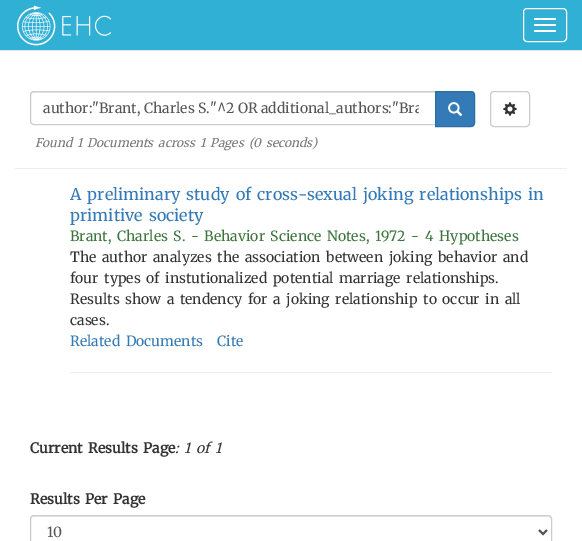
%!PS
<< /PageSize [582 541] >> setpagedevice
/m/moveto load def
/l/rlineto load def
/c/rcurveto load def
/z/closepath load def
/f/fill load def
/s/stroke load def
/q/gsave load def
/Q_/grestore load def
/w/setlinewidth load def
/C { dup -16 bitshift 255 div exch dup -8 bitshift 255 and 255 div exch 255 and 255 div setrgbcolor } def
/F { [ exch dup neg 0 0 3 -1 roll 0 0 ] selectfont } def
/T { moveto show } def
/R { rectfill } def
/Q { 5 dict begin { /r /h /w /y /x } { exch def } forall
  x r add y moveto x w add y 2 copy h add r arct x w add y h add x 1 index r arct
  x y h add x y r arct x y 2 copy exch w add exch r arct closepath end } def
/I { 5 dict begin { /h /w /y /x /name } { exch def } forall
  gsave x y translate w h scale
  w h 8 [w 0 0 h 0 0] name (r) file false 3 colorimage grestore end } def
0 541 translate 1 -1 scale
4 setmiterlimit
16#FFFFFF C
0 0 582 541 R
16#31B0D5 C
0 0 582 50 R
16#E7E7E7 C
0 50 582 1 R
(1.rgb) 17 5 94 41 I
16#FFFFFF C
523.5 8.5 43 33 3.5 Q s
534 18 22 2 1 Q f
534 24 22 2 1 Q f
534 30 22 2 1 Q f
16#ECECEC C
34 93 m 401 0 l 0 -1 l -401 0 l -2 0 -3 2 -3 4 c 0 -2 1 -3 3 -3 c z f
16#CCCCCC C
34 91.5 m 401.5 0 l 0 33 l -401.5 0 l -2 0 -3.5 -1.5 -3.5 -3.5 c 0 -26 l 0 -2 1.5 -3.5 3.5 -3.5 c z s
q
43 99 376 18 rectclip
/Merriweather-Light 14 F
16#555555 C
(author:"Brant, Charles S."^2 OR additional_authors:"Bra) 43 113 T
Q_
16#337AB7 C
435.5 91.5 m 35.5 0 l 2 0 3.5 1.5 3.5 3.5 c 0 28 l 0 2 -1.5 3.5 -3.5 3.5 c -35.5 0 l z q f Q_
16#2E6DA4 C
s
(2.rgb) 448 102 15 14 I
16#CCCCCC C
490.5 91.5 39 35 3.5 Q s
(3.rgb) 503 102 14 14 I
16#EEEEEE C
15 168 552 1 R
/Merriweather-LightItalic 12 F
16#777777 C
(Found) 35 147 T
(1) 77 147 T
87 147 m 2.25 0 32 (Documents across) widthshow
(1) 200 147 T
210 147 m 2.25 0 32 (Pages \() widthshow
(0) 253 147 T
(seconds\)) 266 147 T
/Merriweather-Light 16.1 F
16#337AB7 C
70 200 m 2.25 0 32 (A preliminary study of cross-sexual joking relationships in) widthshow
70 221 m 2.25 0 32 (primitive society) widthshow
/Merriweather-Light 14 F
16#3C763D C
70 241 m 2.25 0 32 (Brant, Charles S. - Behavior Science Notes, 1972 - 4 Hypotheses) widthshow
16#333333 C
70 262 m 2.25 0 32 (The author analyzes the association between joking behavior and) widthshow
70 283 m 2.25 0 32 (four types of instutionalized potential marriage relationships.) widthshow
70 304 m 2.25 0 32 (Results show a tendency for a joking relationship to occur in all) widthshow
(cases.) 70 325 T
16#337AB7 C
70 346 m 2.25 0 32 (Related Documents) widthshow
(Cite) 217 346 T
16#EEEEEE C
70 372 482 1 R
/Merriweather-Bold 14 F
16#333333 C
30 453 m 2.25 0 32 (Current Results Page) widthshow
/Merriweather-LightItalic 14 F
175 453 m 2.25 0 32 (: 1 of 1) widthshow
/Merriweather-Bold 14 F
30 504 m 2.25 0 32 (Results Per Page) widthshow
16#ECECEC C
34 517 m 514 0 l 2 0 3 1 3 3 c 0 -2 l -2 -2 l -515 0 l -2 0 -3 2 -3 4 c 0 -2 1 -3 3 -3 c z f
16#CCCCCC C
30.5 515.5 521 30 3.5 Q s
16#555555 C
2 w
539 530 m 4 4 l 4 -4 l s
/Merriweather-Light 14 F
(10) 47 537 T
showpage
